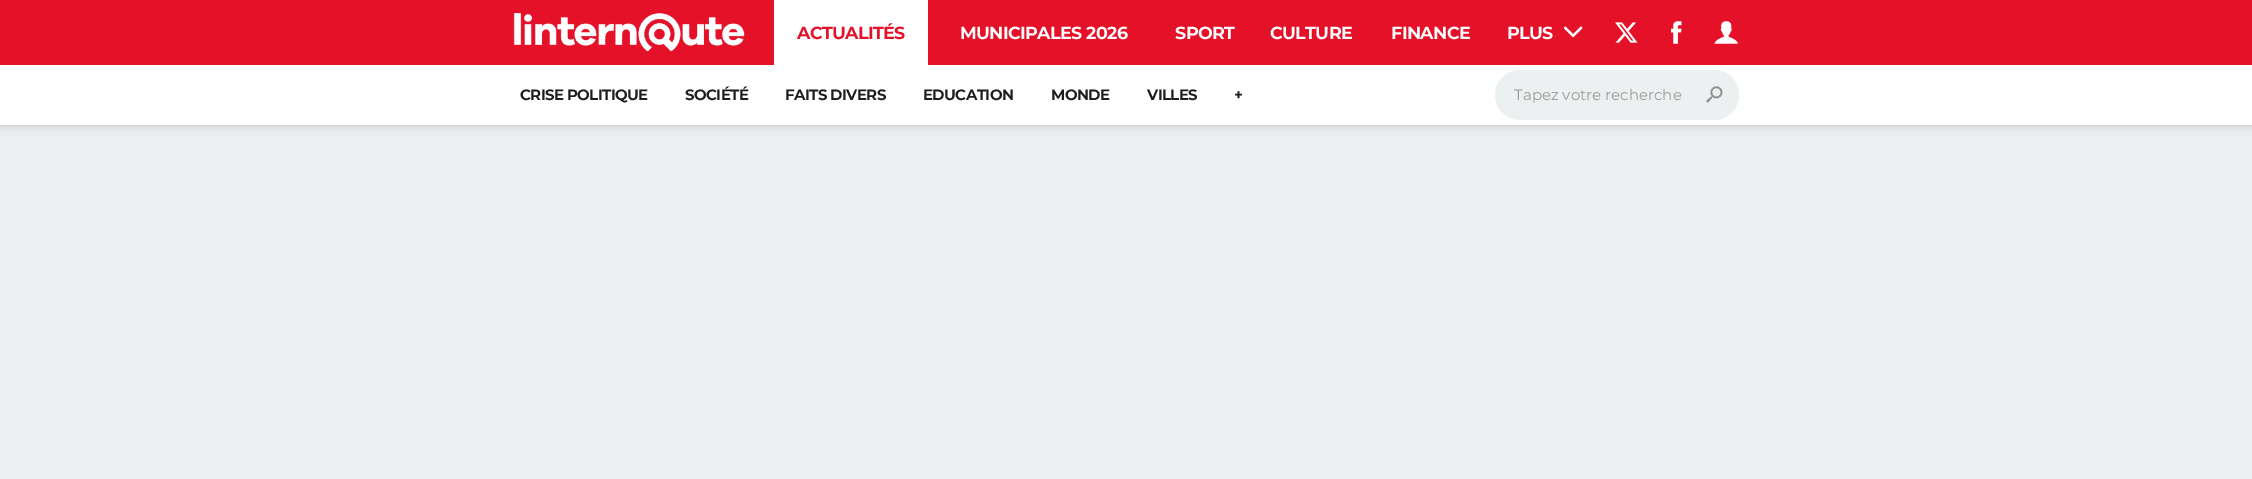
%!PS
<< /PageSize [2252 479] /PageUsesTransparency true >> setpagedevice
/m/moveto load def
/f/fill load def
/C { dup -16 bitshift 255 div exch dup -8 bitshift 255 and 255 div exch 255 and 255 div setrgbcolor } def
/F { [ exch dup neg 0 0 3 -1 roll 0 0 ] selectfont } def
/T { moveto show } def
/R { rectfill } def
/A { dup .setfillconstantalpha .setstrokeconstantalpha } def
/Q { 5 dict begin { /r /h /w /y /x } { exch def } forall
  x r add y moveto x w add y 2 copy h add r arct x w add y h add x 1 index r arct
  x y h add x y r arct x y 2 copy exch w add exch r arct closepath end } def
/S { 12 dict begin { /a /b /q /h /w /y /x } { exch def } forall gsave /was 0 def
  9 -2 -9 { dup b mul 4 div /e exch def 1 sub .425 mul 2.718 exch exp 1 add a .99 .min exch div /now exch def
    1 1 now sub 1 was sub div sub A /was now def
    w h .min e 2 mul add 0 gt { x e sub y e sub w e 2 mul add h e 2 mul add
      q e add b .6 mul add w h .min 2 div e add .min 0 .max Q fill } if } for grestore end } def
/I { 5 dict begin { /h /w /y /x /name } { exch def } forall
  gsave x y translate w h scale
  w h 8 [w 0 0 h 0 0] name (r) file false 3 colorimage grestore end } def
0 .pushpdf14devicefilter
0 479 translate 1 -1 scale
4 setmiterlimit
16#EDF0F0 C
0 0 2252 479 R
16#000000 C
0 0 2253 125 0 5 .2 S
16#E41129 C
0 0 2252 65 R
(1.rgb) 513 13 232 39 I
16#FFFFFF C
774 0 154 65 R
/Montserrat-Bold 17.5 F
16#E41129 C
797 39 m -.6 0 (ACTUALITÉS) ashow
16#FFFFFF C
960 39 m -.6 0 (MUNICIPALES 2026) ashow
1175 39 m -.6 0 (SPORT) ashow
1270 39 m -.6 0 (CULTURE) ashow
1391 39 m -.6 0 (FINANCE) ashow
1507 39 m -.6 0 (PLUS) ashow
(2.rgb) 1564 26 19 12 I
(3.rgb) 1615 22 23 21 I
(4.rgb) 1671 21 11 23 I
(5.rgb) 1714 21 24 23 I
0 65 2252 60 R
/Montserrat-Bold 15 F
16#1D1D1D C
520 100 m -.6 0 (CRISE POLITIQUE) ashow
685 100 m -.6 0 (SOCIÉTÉ) ashow
785 100 m -.6 0 (FAITS DIVERS) ashow
923 100 m -.6 0 (EDUCATION) ashow
1051 100 m -.6 0 (MONDE) ashow
1147 100 m -.6 0 (VILLES) ashow
1234 100 m -.6 0 (+) ashow
16#EDF0F0 C
1495 70 244 50 25 Q f
/Montserrat-Regular 15 F
16#9D9E9E C
(Tapez votre recherche) 1514 100 T
(6.rgb) 1706 86 17 17 I
.poppdf14devicefilter showpage
